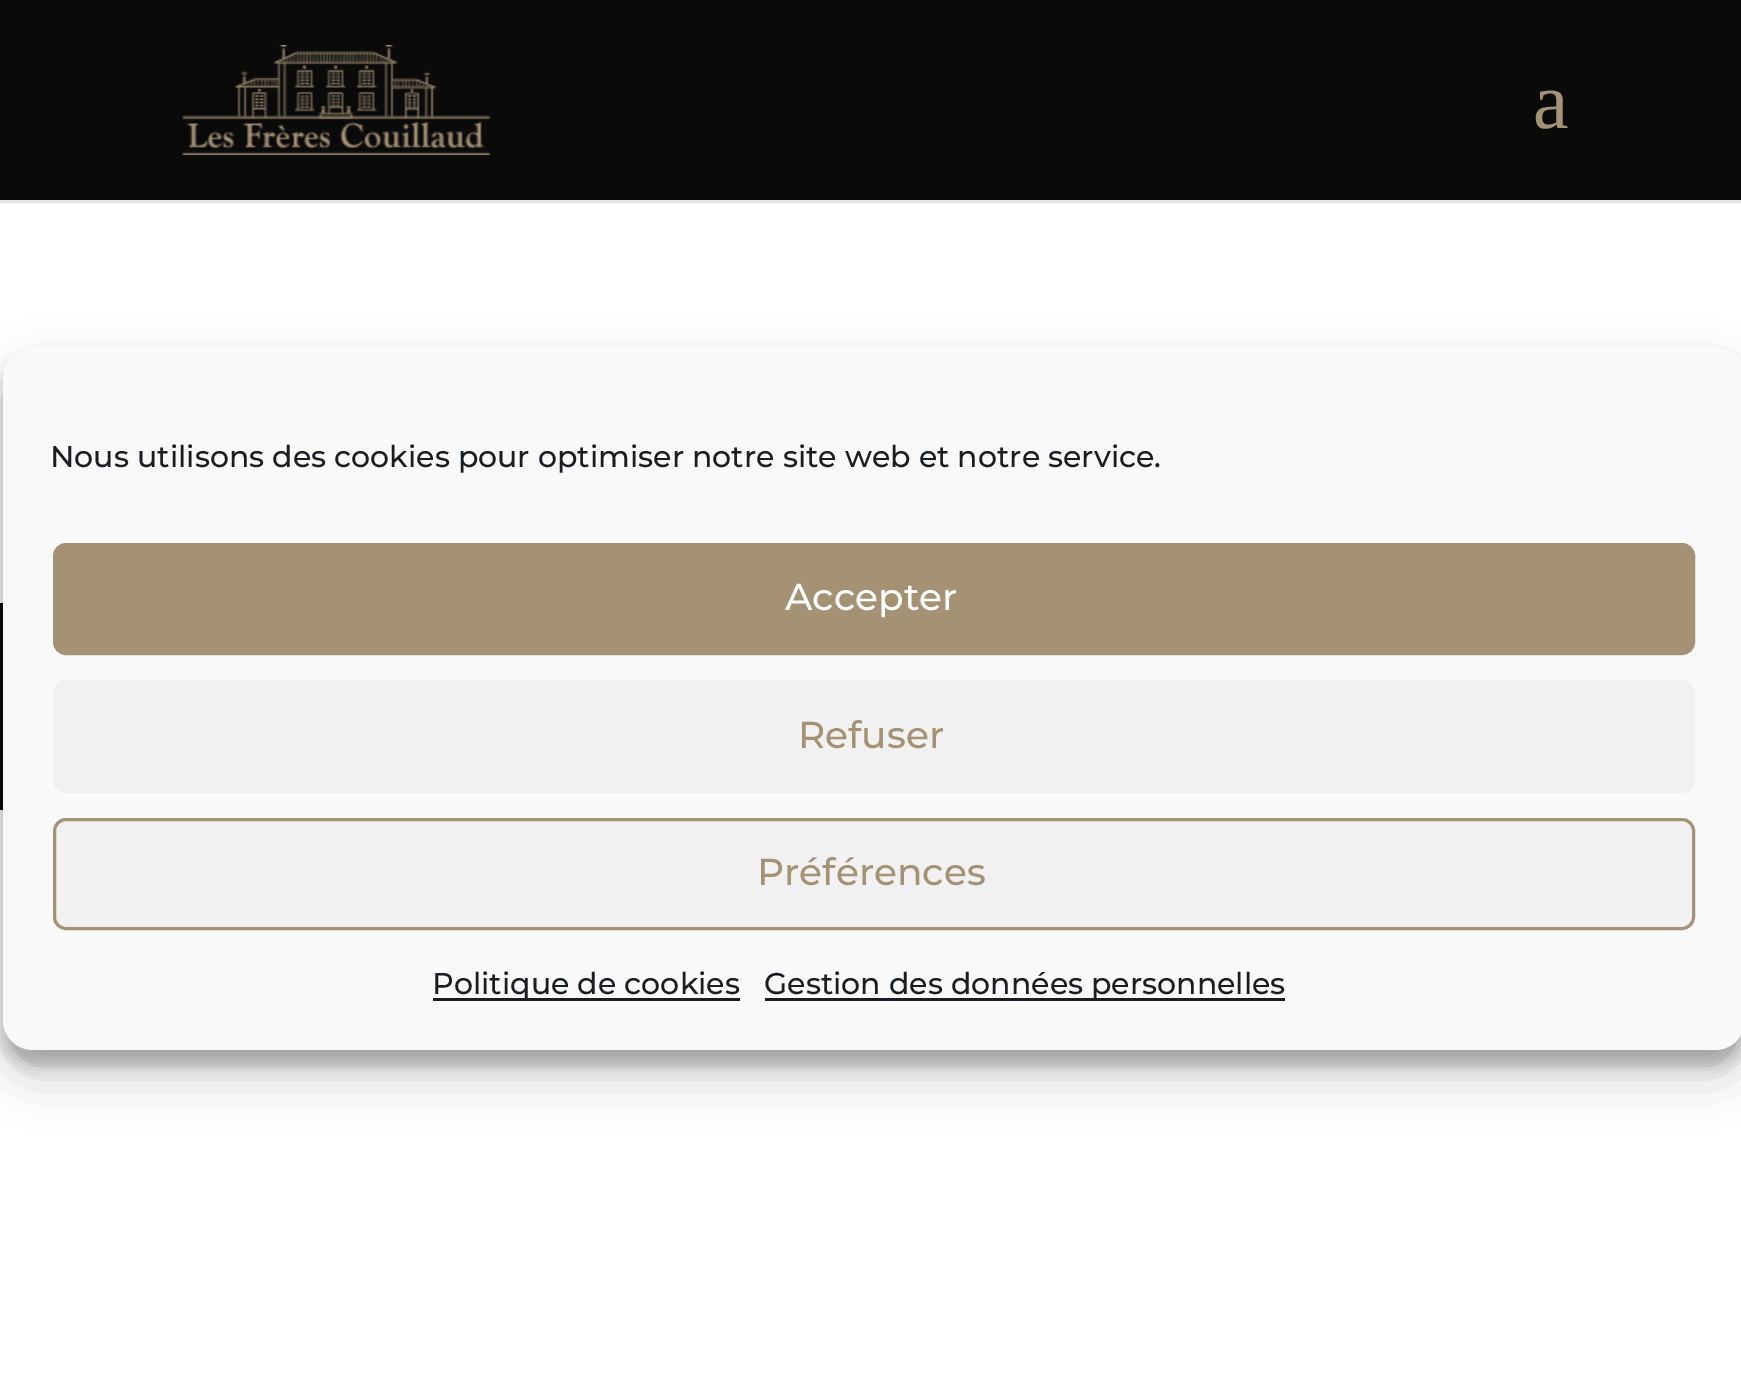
%!PS
<< /PageSize [1741 1396] /PageUsesTransparency true >> setpagedevice
/m/moveto load def
/l/rlineto load def
/c/rcurveto load def
/z/closepath load def
/f/fill load def
/s/stroke load def
/q/gsave load def
/Q_/grestore load def
/w/setlinewidth load def
/C { dup -16 bitshift 255 div exch dup -8 bitshift 255 and 255 div exch 255 and 255 div setrgbcolor } def
/F { [ exch dup neg 0 0 3 -1 roll 0 0 ] selectfont } def
/T { moveto show } def
/R { rectfill } def
/A { dup .setfillconstantalpha .setstrokeconstantalpha } def
/Q { 5 dict begin { /r /h /w /y /x } { exch def } forall
  x r add y moveto x w add y 2 copy h add r arct x w add y h add x 1 index r arct
  x y h add x y r arct x y 2 copy exch w add exch r arct closepath end } def
/S { 12 dict begin { /a /b /q /h /w /y /x } { exch def } forall gsave /was 0 def
  9 -2 -9 { dup b mul 4 div /e exch def 1 sub .425 mul 2.718 exch exp 1 add a .99 .min exch div /now exch def
    1 1 now sub 1 was sub div sub A /was now def
    w h .min e 2 mul add 0 gt { x e sub y e sub w e 2 mul add h e 2 mul add
      q e add b .6 mul add w h .min 2 div e add .min 0 .max Q fill } if } for grestore end } def
/I { 5 dict begin { /h /w /y /x /name } { exch def } forall
  gsave x y translate w h scale
  w h 8 [w 0 0 h 0 0] name (r) file false 3 colorimage grestore end } def
0 .pushpdf14devicefilter
0 1396 translate 1 -1 scale
4 setmiterlimit
16#FFFFFF C
0 0 1741 1396 R
16#E6E6E6 C
0 200 m 0 3 l 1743 0 l 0 -200 l -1 0 l 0 197 l z f
16#0A0A0A C
0 0 1741 200 R
(1.rgb) 182 45 309 110 I
/LiberationSerif-Regular 80 F
16#A59275 C
(a) 1533 128 T
16#0A0A0A C
0 603 3 207 R
q
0 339 m 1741 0 l 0 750 l -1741 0 l z 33 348 m 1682 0 l 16.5 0 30 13.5 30 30 c 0 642 l 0 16.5 -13.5 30 -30 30 c -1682 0 l -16.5 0 -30 -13.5 -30 -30 c 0 -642 l 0 -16.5 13.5 -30 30 -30 c z eoclip newpath
16#000000 C
3 363 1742 702 30 7.5 .23 S
Q_
q
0 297 m 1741 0 l 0 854 l -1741 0 l z 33 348 m 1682 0 l 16.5 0 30 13.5 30 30 c 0 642 l 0 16.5 -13.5 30 -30 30 c -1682 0 l -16.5 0 -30 -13.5 -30 -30 c 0 -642 l 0 -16.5 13.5 -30 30 -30 c z eoclip newpath
16#000000 C
3 373 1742 702 30 25 .19 S
Q_
16#F9F9F9 C
3 348 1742 702 30 Q f
/Montserrat-Thin 30 F
16#191E23 C
(Nous utilisons des cookies pour optimiser notre site web et notre service.) 50 467 T
16#A59275 C
54.5 544.5 1639 109 11.5 Q q f Q_
3 w
s
/Montserrat-Thin 37.5 F
16#FFFFFF C
(Accepter) 785 610 T
16#F1F1F1 C
53 680 1642 113 13 Q f
16#A59275 C
(Refuser) 798 748 T
16#F1F1F1 C
54.5 819.5 1639 109 11.5 Q q f Q_
16#A59275 C
s
(Préférences) 757 885 T
16#191E23 C
433 998 307 3 R
/Montserrat-Thin 30 F
(Politique de cookies) 432 994 T
765 998 520 3 R
(Gestion des données personnelles) 764 994 T
.poppdf14devicefilter showpage
